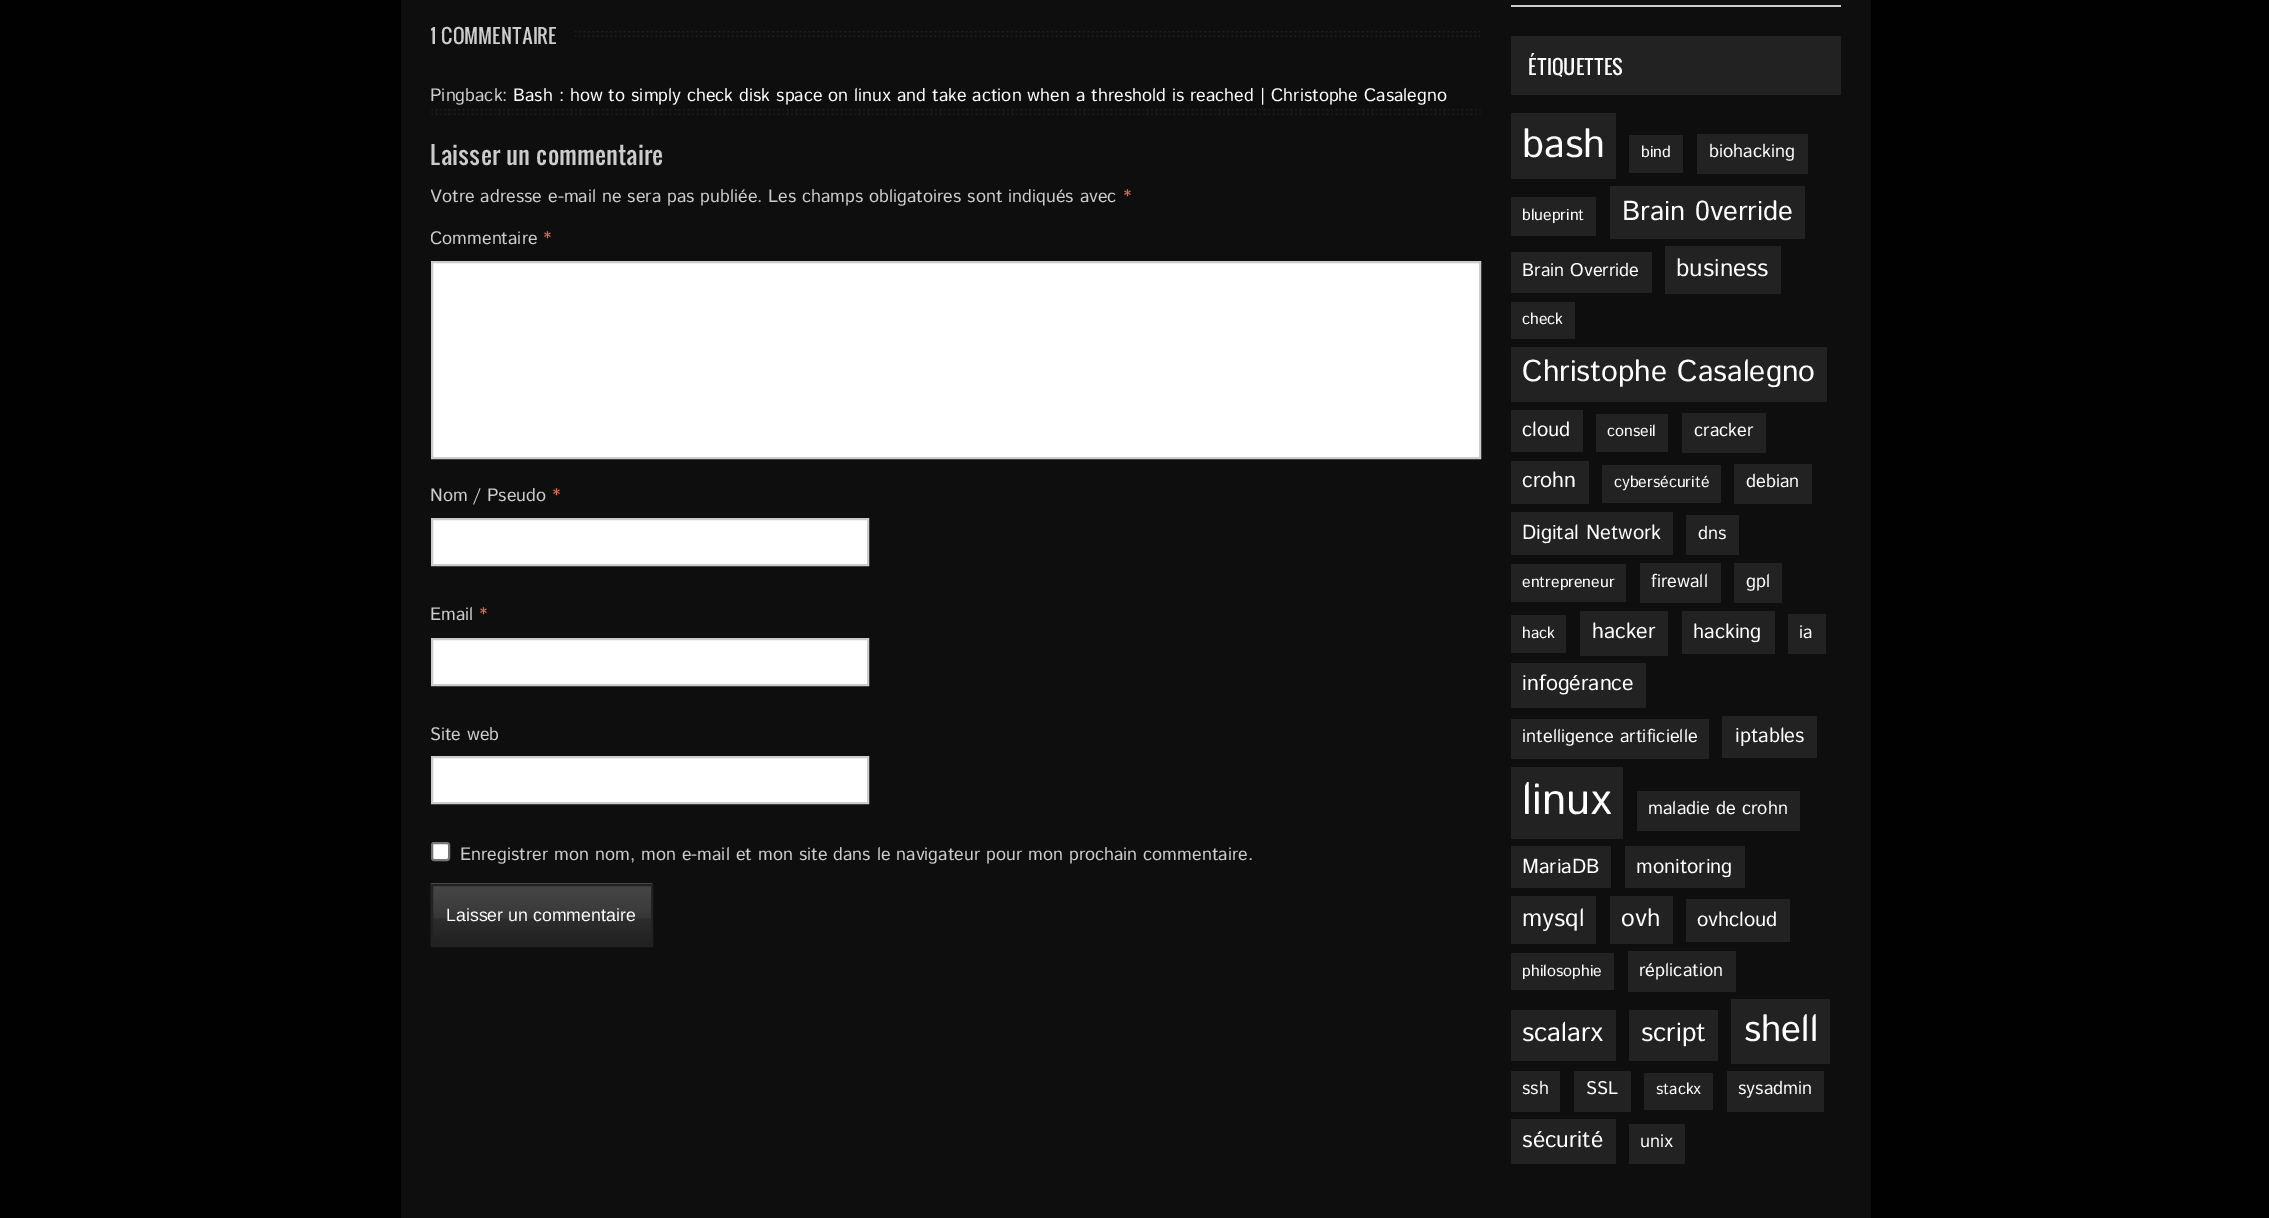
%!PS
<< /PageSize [2269 1218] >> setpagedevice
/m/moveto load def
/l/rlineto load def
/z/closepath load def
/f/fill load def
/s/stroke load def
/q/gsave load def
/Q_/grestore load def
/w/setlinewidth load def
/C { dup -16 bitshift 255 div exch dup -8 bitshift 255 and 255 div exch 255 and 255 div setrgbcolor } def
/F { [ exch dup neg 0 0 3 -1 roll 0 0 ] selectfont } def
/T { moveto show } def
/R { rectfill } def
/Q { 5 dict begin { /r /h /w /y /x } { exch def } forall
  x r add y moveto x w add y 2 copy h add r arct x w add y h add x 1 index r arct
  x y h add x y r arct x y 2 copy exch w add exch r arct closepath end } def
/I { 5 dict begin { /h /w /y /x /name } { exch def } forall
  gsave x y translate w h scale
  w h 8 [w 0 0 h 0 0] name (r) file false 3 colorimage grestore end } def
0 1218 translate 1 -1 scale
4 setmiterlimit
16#010101 C
0 0 2269 1218 R
16#0E0E0E C
401 0 1470 1218 R
(1.rgb) 575 31 906 6 I
q
431 0 1410 1202 rectclip
/Oswald-Regular 19.5 F
16#CCCCCC C
(1 COMMENTAIRE) 430 44 T
Q_
/IstokWeb-Regular 18 F
16#CCCCCC C
(Pingback:) 430 101 T
16#FFFFFF C
(Bash : how to simply check disk space on linux and take action when a threshold is reached | Christophe Casalegno) 513 101 T
(2.rgb) 431 109 1050 6 I
/Oswald-Regular 24 F
16#CCCCCC C
(Laisser un commentaire) 430 165 T
q
431 0 1410 1202 rectclip
/IstokWeb-Regular 18 F
(Votre adresse e-mail ne sera pas publiée.) 430 202 T
Q_
/IstokWeb-Regular 18 F
(Les champs obligatoires sont indiqués avec) 768 202 T
16#DC6A4F C
(*) 1123 202 T
q
431 0 1410 1202 rectclip
16#CCCCCC C
(Commentaire) 430 244 T
Q_
(*) 543 244 T
16#FFFFFF C
432 262 m 1048 0 l 0 196 l -1048 0 l z q f Q_
16#CCCCCC C
2 w
s
(Nom / Pseudo) 430 501 T
16#DC6A4F C
(*) 552 501 T
16#FFFFFF C
432 519 m 436 0 l 0 46 l -436 0 l z q f Q_
16#CCCCCC C
s
(Email) 430 620 T
16#DC6A4F C
(*) 479 620 T
16#FFFFFF C
432 639 m 436 0 l 0 46 l -436 0 l z q f Q_
16#CCCCCC C
s
(Site web) 430 740 T
16#FFFFFF C
432 757 m 436 0 l 0 46 l -436 0 l z q f Q_
16#CCCCCC C
s
16#FFFFFF C
432 843 17 17 2 Q q f Q_
16#767676 C
s
16#CCCCCC C
(Enregistrer mon nom, mon e-mail et mon site dans le navigateur pour mon prochain commentaire.) 460 860 T
(3.rgb) 430 883 223 63 I
16#222222 C
432 885 220 61 rectstroke
/LiberationSans-Regular 17.75 F
16#FFFFFF C
(Laisser un commentaire) 446 921 T
16#CCCCCC C
1511 5 330 2 R
16#222222 C
1511 36 330 59 R
/Oswald-Regular 19.5 F
16#FFFFFF C
(ÉTIQUETTES) 1528 75 T
16#222222 C
1511 113 105 66 R
/IstokWeb-Regular 40 F
16#FFFFFF C
(bash) 1522 157 T
16#222222 C
1629 135 54 38 R
/IstokWeb-Regular 16 F
16#FFFFFF C
(bind) 1641 157 T
16#222222 C
1697 134 111 40 R
/IstokWeb-Regular 18.25 F
16#FFFFFF C
(biohacking) 1709 157 T
16#222222 C
1511 197 85 39 R
/IstokWeb-Regular 16 F
16#FFFFFF C
(blueprint) 1522 220 T
16#222222 C
1610 186 195 53 R
/IstokWeb-Regular 27.5 F
16#FFFFFF C
(Brain 0verride) 1622 220 T
16#222222 C
1511 252 141 41 R
/IstokWeb-Regular 18.25 F
16#FFFFFF C
(Brain Override) 1522 276 T
16#222222 C
1665 246 116 48 R
/IstokWeb-Regular 24.5 F
16#FFFFFF C
(business) 1676 276 T
16#222222 C
1511 302 64 37 R
/IstokWeb-Regular 16 F
16#FFFFFF C
(check) 1522 324 T
16#222222 C
1511 347 316 55 R
/IstokWeb-Regular 30 F
16#FFFFFF C
(Christophe Casalegno) 1522 381 T
16#222222 C
1511 410 72 42 R
/IstokWeb-Regular 20.25 F
16#FFFFFF C
(cloud) 1522 436 T
16#222222 C
1596 414 72 38 R
/IstokWeb-Regular 16 F
16#FFFFFF C
(conseil) 1607 436 T
16#222222 C
1682 413 84 40 R
/IstokWeb-Regular 18.25 F
16#FFFFFF C
(cracker) 1694 436 T
16#222222 C
1511 461 78 43 R
/IstokWeb-Regular 21.5 F
16#FFFFFF C
(crohn) 1522 487 T
16#222222 C
1602 465 119 38 R
/IstokWeb-Regular 16 F
16#FFFFFF C
(cybersécurité) 1614 487 T
16#222222 C
1734 464 78 40 R
/IstokWeb-Regular 18.25 F
16#FFFFFF C
(debian) 1746 487 T
16#222222 C
1511 512 162 43 R
/IstokWeb-Regular 20.25 F
16#FFFFFF C
(Digital Network) 1522 539 T
16#222222 C
1686 515 53 40 R
/IstokWeb-Regular 18.25 F
16#FFFFFF C
(dns) 1698 539 T
16#222222 C
1511 564 115 38 R
/IstokWeb-Regular 16 F
16#FFFFFF C
(entrepreneur) 1522 587 T
16#222222 C
1640 563 81 40 R
/IstokWeb-Regular 18.25 F
16#FFFFFF C
(firewall) 1651 587 T
16#222222 C
1734 563 48 40 R
16#FFFFFF C
(gpl) 1746 587 T
16#222222 C
1511 615 55 38 R
/IstokWeb-Regular 16 F
16#FFFFFF C
(hack) 1522 638 T
16#222222 C
1580 611 88 45 R
/IstokWeb-Regular 21.5 F
16#FFFFFF C
(hacker) 1592 638 T
16#222222 C
1682 611 93 43 R
/IstokWeb-Regular 20.25 F
16#FFFFFF C
(hacking) 1693 638 T
16#222222 C
1788 614 38 40 R
/IstokWeb-Regular 18.25 F
16#FFFFFF C
(ia) 1799 638 T
16#222222 C
1511 663 135 45 R
/IstokWeb-Regular 21.5 F
16#FFFFFF C
(infogérance) 1522 690 T
16#222222 C
1511 719 198 40 R
/IstokWeb-Regular 18.25 F
16#FFFFFF C
(intelligence artificielle) 1522 742 T
16#222222 C
1722 716 95 42 R
/IstokWeb-Regular 20.25 F
16#FFFFFF C
(iptables) 1735 742 T
16#222222 C
1511 767 112 72 R
/IstokWeb-Regular 44 F
16#FFFFFF C
(linux) 1522 814 T
16#222222 C
1637 791 163 40 R
/IstokWeb-Regular 18.25 F
16#FFFFFF C
(maladie de crohn) 1648 814 T
16#222222 C
1511 846 100 42 R
/IstokWeb-Regular 20.25 F
16#FFFFFF C
(MariaDB) 1522 873 T
16#222222 C
1625 846 120 42 R
16#FFFFFF C
(monitoring) 1636 873 T
16#222222 C
1511 896 85 48 R
/IstokWeb-Regular 24.5 F
16#FFFFFF C
(mysql) 1522 926 T
16#222222 C
1610 896 63 48 R
16#FFFFFF C
(ovh) 1621 926 T
16#222222 C
1686 899 104 43 R
/IstokWeb-Regular 20.25 F
16#FFFFFF C
(ovhcloud) 1697 926 T
16#222222 C
1511 953 103 37 R
/IstokWeb-Regular 16 F
16#FFFFFF C
(philosophie) 1522 976 T
16#222222 C
1628 951 108 41 R
/IstokWeb-Regular 18.25 F
16#FFFFFF C
(réplication) 1639 976 T
16#222222 C
1511 1010 105 51 R
/IstokWeb-Regular 26.5 F
16#FFFFFF C
(scalarx) 1522 1041 T
16#222222 C
1629 1010 89 51 R
16#FFFFFF C
(script) 1641 1041 T
16#222222 C
1731 999 99 65 R
/IstokWeb-Regular 37 F
16#FFFFFF C
(shell) 1744 1041 T
16#222222 C
1511 1071 49 41 R
/IstokWeb-Regular 18.25 F
16#FFFFFF C
(ssh) 1522 1094 T
16#222222 C
1574 1071 57 41 R
16#FFFFFF C
(SSL) 1586 1094 T
16#222222 C
1644 1073 69 37 R
/IstokWeb-Regular 16 F
16#FFFFFF C
(stackx) 1656 1094 T
16#222222 C
1727 1071 97 41 R
/IstokWeb-Regular 18.25 F
16#FFFFFF C
(sysadmin) 1738 1094 T
16#222222 C
1511 1119 105 45 R
/IstokWeb-Regular 23 F
16#FFFFFF C
(sécurité) 1522 1147 T
16#222222 C
1629 1124 56 40 R
/IstokWeb-Regular 18.25 F
16#FFFFFF C
(unix) 1640 1147 T
showpage
